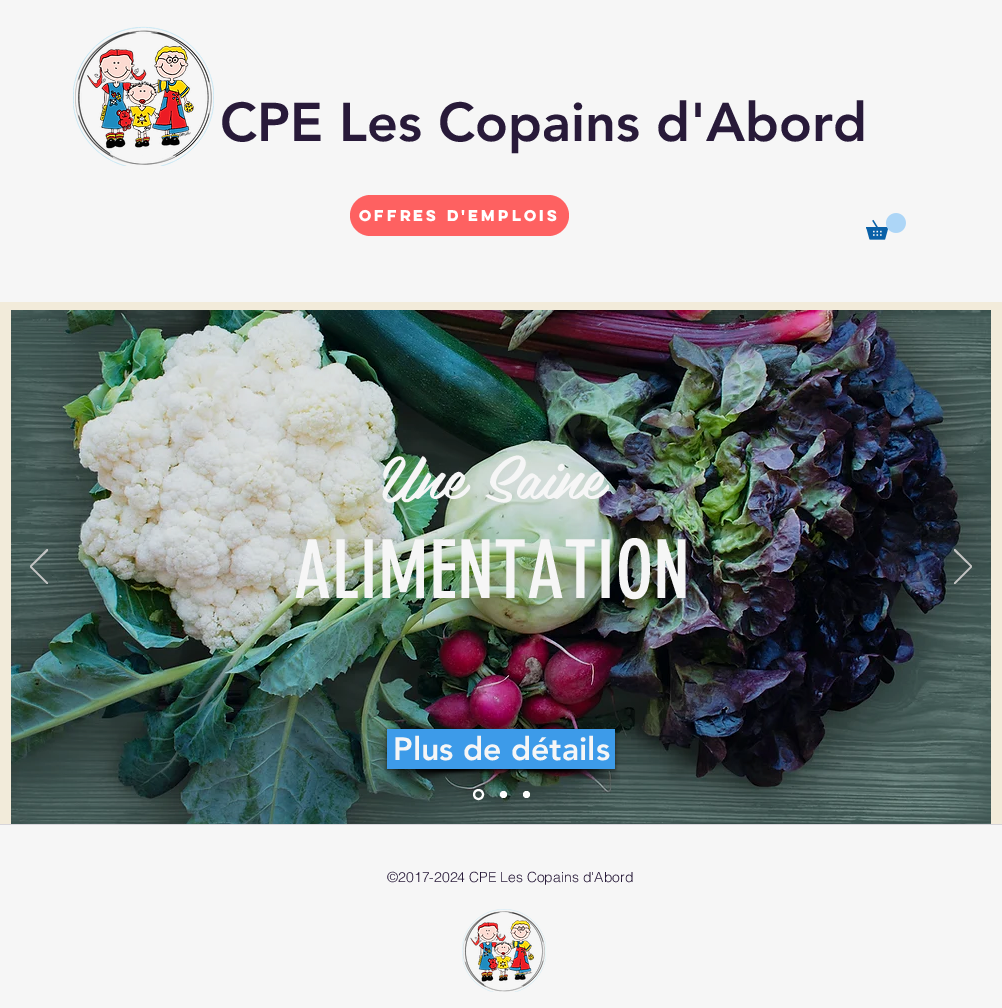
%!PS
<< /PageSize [1002 1008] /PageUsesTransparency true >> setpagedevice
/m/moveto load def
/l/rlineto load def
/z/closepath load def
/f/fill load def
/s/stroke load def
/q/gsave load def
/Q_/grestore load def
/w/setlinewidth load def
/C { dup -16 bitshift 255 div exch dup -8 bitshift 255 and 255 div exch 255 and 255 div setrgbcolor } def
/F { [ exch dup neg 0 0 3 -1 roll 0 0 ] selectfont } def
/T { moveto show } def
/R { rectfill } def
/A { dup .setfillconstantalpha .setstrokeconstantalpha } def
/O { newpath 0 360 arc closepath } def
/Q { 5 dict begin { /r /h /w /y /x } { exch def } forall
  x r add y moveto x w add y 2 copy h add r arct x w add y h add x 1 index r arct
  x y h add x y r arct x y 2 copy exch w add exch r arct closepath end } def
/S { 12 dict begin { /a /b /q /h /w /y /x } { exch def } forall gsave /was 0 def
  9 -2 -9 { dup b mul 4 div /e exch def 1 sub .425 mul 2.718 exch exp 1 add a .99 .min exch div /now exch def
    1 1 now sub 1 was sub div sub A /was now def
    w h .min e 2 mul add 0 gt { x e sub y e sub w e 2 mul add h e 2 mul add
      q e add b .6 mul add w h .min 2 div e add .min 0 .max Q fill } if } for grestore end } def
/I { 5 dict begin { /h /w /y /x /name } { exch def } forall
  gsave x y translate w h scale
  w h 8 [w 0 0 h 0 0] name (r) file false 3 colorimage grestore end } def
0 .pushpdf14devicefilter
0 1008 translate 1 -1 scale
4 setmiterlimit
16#F6F6F6 C
0 0 1002 1008 R
(1.rgb) 73 26 141 140 I
/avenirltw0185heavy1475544-Black 54 F
16#281A39 C
(CPE Les Copains d'Abord) 220 141 T
16#FE6161 C
350 195 219 41 20.5 Q f
/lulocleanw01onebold-Bold 14 F
16#FFFFFF C
(Offres d'emplois) 359 221 T
(2.rgb) 866 213 40 27 I
16#F2EBDA C
0 302 1002 522 R
(3.rgb) 11 310 980 514 I
q
30 549 18 35 rectclip
16#C5C5C5 C
.9 w
47.5 584 m -17.5 -17.5 l 17.5 -17.5 l .5 1 l -17 16.5 l 17 17 l z s
Q_
/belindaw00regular-Regular 60 F
16#F6F6F6 C
(Une Saine) 381 499 T
/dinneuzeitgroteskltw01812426-Regular 80 F
(ALIMENTATION) 294 598 T
(4.rgb) 382 769 141 16 I
(5.rgb) 493 769 127 17 I
16#000000 C
387 730 228 40 0 2 .6 S
16#3D9BE9 C
387 729 228 40 R
/avenirltw0185heavy1475544-Black 32 F
16#F6F6F6 C
(Plus de détails) 393 760 T
q
954 549 18 35 rectclip
16#C5C5C5 C
.9 w
954.5 584 m 17.5 -17.5 l -17.5 -17.5 l -.5 1 l 17 16.5 l -17 17 l z s
Q_
16#FFFFFF C
2 w
478.5 794.5 4.5 O s
503.5 794.5 3.5 O f
526.5 794.5 3.5 O f
16#D7D5DA C
0 824 1002 1 R
/helvetica-Light 14 F
16#281A39 C
(©2017-2024 CPE Les Copains d'Abord) 387 882 T
(6.rgb) 462 909 84 83 I
.poppdf14devicefilter showpage
